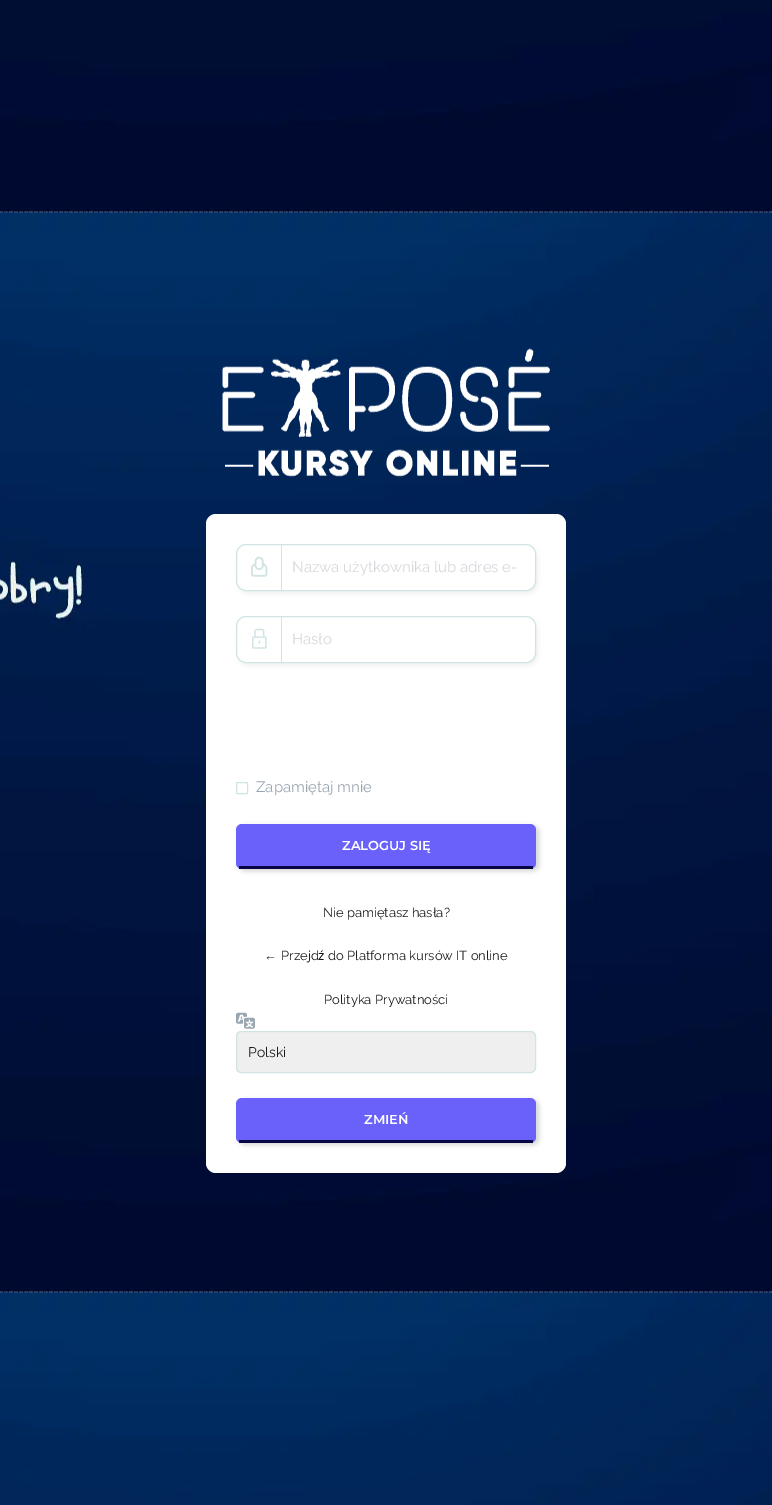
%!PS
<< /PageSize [772 1505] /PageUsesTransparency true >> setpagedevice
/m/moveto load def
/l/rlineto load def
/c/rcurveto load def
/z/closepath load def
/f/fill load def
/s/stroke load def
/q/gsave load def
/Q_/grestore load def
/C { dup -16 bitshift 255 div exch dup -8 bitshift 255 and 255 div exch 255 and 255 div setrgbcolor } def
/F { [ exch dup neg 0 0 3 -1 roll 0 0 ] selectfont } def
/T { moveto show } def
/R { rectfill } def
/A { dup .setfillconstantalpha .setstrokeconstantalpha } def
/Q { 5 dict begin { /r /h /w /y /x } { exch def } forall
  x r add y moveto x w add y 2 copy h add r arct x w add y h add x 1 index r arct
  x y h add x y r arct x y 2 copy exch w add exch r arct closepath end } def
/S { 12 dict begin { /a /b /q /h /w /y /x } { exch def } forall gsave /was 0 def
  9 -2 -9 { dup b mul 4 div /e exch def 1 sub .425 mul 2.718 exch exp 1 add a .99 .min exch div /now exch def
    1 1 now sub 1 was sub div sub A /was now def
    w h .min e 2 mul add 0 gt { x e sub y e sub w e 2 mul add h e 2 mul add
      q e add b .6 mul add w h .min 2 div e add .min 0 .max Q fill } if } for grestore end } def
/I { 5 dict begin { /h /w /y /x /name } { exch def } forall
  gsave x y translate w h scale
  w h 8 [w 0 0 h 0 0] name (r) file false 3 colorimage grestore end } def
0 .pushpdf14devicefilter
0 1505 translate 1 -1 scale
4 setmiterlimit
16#FFFFFF C
0 0 772 1505 R
(1.rgb) 0 0 772 1505 I
(2.rgb) 222 348 328 129 I
206 514 360 659 10 Q f
q
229 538 m 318 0 l 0 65 l -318 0 l z 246 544 m 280 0 l 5.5 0 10 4.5 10 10 c 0 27 l 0 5.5 -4.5 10 -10 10 c -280 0 l -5.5 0 -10 -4.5 -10 -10 c 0 -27 l 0 -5.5 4.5 -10 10 -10 c z eoclip newpath
16#000000 C
238 547 300 47 10 2.5 .06 S
Q_
16#D0E4E4 C
236.5 544.5 299 46 9.5 Q s
281 545 1 45 R
(3.rgb) 251 556 17 21 I
/Raleway-Regular 15 F
16#D7D7DE C
(Nazwa użytkownika lub adres e-) 292 572 T
q
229 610 m 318 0 l 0 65 l -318 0 l z 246 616 m 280 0 l 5.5 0 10 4.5 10 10 c 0 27 l 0 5.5 -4.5 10 -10 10 c -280 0 l -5.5 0 -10 -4.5 -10 -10 c 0 -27 l 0 -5.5 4.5 -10 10 -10 c z eoclip newpath
16#000000 C
238 619 300 47 10 2.5 .06 S
Q_
16#D0E4E4 C
236.5 616.5 299 46 9.5 Q s
281 617 1 45 R
(4.rgb) 252 628 15 21 I
16#D7D7DE C
(Hasło) 292 644 T
16#D0E4E4 C
236.5 782.5 11 11 .5 Q s
16#99A5B0 C
(Zapamiętaj mnie) 256 792 T
16#000000 C
239 826 300 45 6 2.5 .16 S
16#6961F9 C
236 824 300 45 6 Q f
16#060644 C
239 866 294 3 R
/Montserrat-SemiBold 13 F
16#FFFFFF C
(ZALOGUJ SIĘ) 342 850 T
/Raleway-Regular 13 F
16#1C1C1C C
(Nie pamiętasz hasła?) 323 917 T
/LiberationSans-Regular 13 F
(←) 264 960 T
/Raleway-Regular 13 F
(Przejd) 281 960 T
/LiberationSans-Regular 13 F
(ź) 318 960 T
/Raleway-Regular 13 F
(do Platforma kursów IT online) 328 960 T
(Polityka Prywatności) 324 1004 T
(5.rgb) 236 1012 19 17 I
16#EFEFEF C
236.5 1031.5 299 41 4.5 Q q f Q_
16#D0E4E4 C
s
/Raleway-Regular 14 F
16#1C1C1C C
(Polski) 248 1057 T
16#000000 C
239 1100 300 45 6 2.5 .16 S
16#6961F9 C
236 1098 300 45 6 Q f
16#060644 C
239 1140 294 3 R
/Montserrat-SemiBold 13 F
16#FFFFFF C
(ZMIEŃ) 364 1124 T
.poppdf14devicefilter showpage
